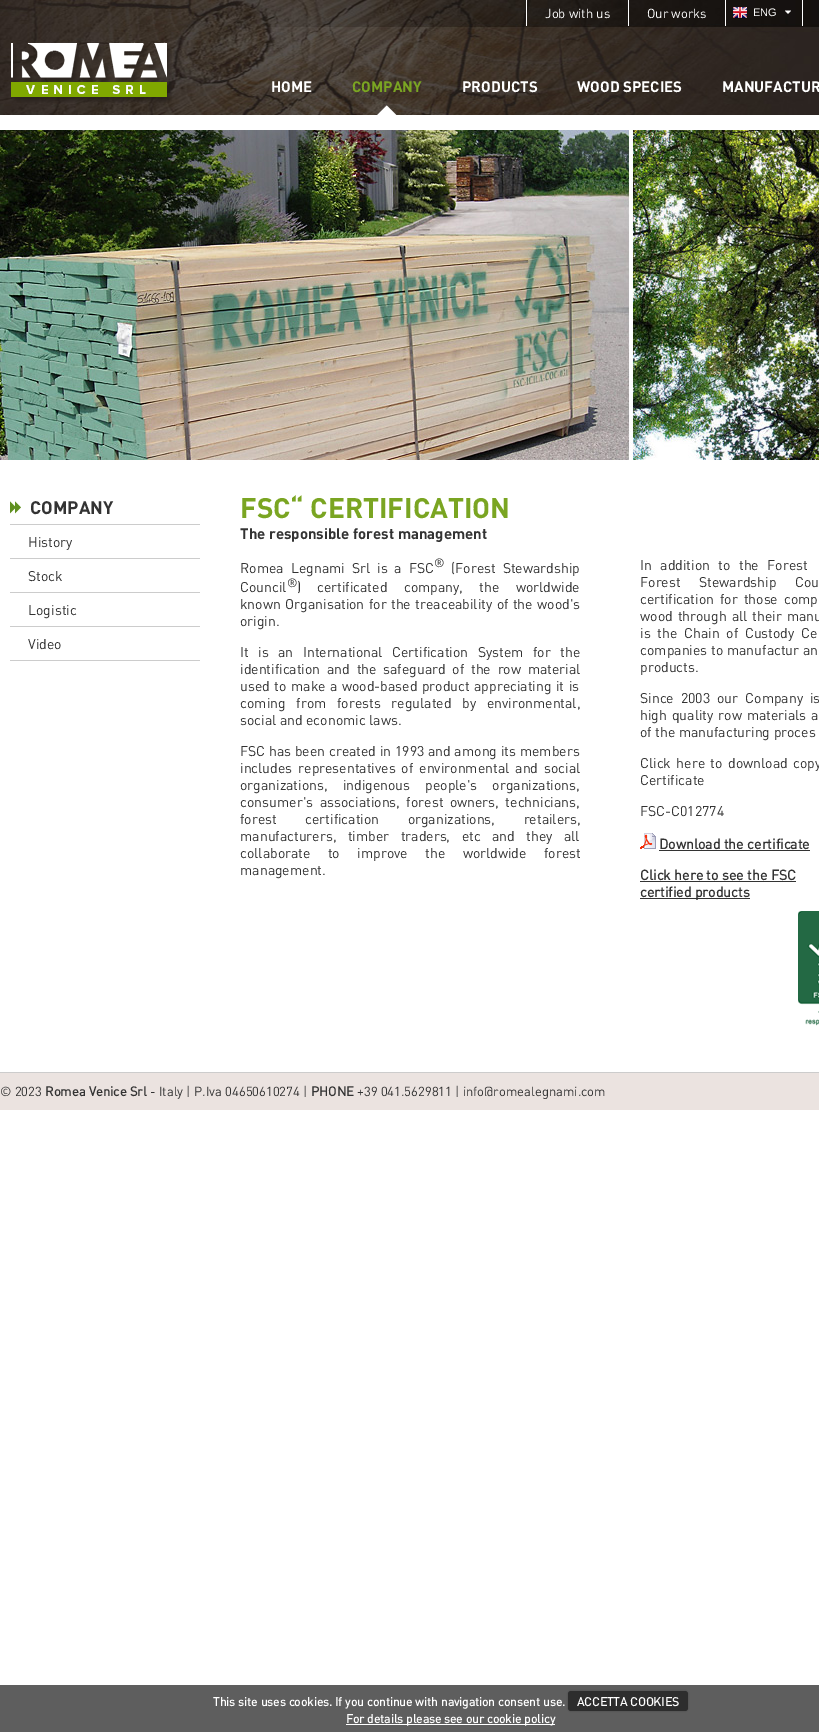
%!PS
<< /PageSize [819 1732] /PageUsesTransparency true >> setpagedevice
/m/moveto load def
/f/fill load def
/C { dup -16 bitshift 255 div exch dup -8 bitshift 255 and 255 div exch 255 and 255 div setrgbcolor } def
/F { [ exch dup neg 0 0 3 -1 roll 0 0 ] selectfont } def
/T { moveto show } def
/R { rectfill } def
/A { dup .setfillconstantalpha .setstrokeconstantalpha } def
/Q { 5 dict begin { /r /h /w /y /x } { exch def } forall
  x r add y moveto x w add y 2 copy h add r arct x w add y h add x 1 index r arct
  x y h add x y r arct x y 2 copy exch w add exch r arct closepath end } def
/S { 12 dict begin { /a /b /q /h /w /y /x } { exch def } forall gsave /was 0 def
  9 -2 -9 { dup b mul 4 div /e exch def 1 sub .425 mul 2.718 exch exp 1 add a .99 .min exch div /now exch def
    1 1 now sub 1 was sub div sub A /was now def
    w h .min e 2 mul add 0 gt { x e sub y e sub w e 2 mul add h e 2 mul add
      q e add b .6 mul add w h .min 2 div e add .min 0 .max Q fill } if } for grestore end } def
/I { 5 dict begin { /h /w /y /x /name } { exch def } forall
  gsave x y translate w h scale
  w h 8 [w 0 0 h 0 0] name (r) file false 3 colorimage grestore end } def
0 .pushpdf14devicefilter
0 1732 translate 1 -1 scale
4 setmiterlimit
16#FFFFFF C
0 0 819 1732 R
(1.rgb) 0 0 819 115 I
526 0 1 26 R
/DIN-Regular 13 F
(Job with us) 545 18 T
628 0 1 26 R
(Our works) 647 18 T
802 0 1 26 R
725 0 1 26 R
(2.rgb) 733 7 14 12 I
/LiberationSans-Regular 11 F
(ENG) 753 16 T
(3.rgb) 785 10 6 4 I
(4.rgb) 11 42 161 61 I
/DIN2-Bold 15 F
(HOME) 271 92 T
(5.rgb) 377 105 20 10 I
16#7AA522 C
(COMPANY) 352 92 T
16#FFFFFF C
(PRODUCTS) 462 92 T
(WOOD SPECIES) 577 92 T
(MANUFACTUR) 722 92 T
(6.rgb) 0 130 819 330 I
(7.rgb) 10 501 11 13 I
/DIN2-Bold 18 F
16#333333 C
(COMPANY) 30 514 T
16#CCCCCC C
10 524 190 1 R
10 558 190 1 R
/DIN-Regular 14 F
16#333333 C
(History) 28 547 T
16#CCCCCC C
10 592 190 1 R
16#333333 C
(Stock) 28 581 T
16#CCCCCC C
10 626 190 1 R
16#333333 C
(Logistic) 28 615 T
16#CCCCCC C
10 660 190 1 R
16#333333 C
(Video) 28 649 T
/DIN2-Bold 28 F
16#7AA522 C
(FSC“ CERTIFICATION) 240 518 T
/DIN2-Bold 15 F
16#333333 C
(The responsible forest management) 240 539 T
/DIN-Regular 14 F
240 573 m 3.5 0 32 (Romea Legnami Srl is a FSC) widthshow
/DIN-Regular 12 F
(®) 434 567 T
/DIN-Regular 14 F
451 573 m 3.5 0 32 (\(Forest Stewardship) widthshow
(Council) 240 592 T
/DIN-Regular 12 F
(®) 287 587 T
/DIN-Regular 14 F
(\)) 297 592 T
317 592 m 13 0 32 (certificated company, the worldwide) widthshow
240 609 m 1 0 32 (known Organisation for the treaceability of the wood's) widthshow
(origin.) 240 626 T
240 657 m 6 0 32 (It is an International Certification System for the) widthshow
240 674 m 3.25 0 32 (identification and the safeguard of the row material) widthshow
240 691 m 1 0 32 (used to make a wood-based product appreciating it is) widthshow
240 708 m 7.25 0 32 (coming from forests regulated by environmental,) widthshow
(social and economic laws.) 240 725 T
240 756 m .25 0 32 (FSC has been created in 1993 and among its members) widthshow
240 773 m 2.5 0 32 (includes representatives of environmental and social) widthshow
240 790 m 11.5 0 32 (organizations, indigenous people's organizations,) widthshow
240 807 m 3 0 32 (consumer's associations, forest owners, technicians,) widthshow
240 824 m 25 0 32 (forest certification organizations, retailers,) widthshow
240 841 m 8 0 32 (manufacturers, timber traders, etc and they all) widthshow
240 858 m 14 0 32 (collaborate to improve the worldwide forest) widthshow
(management.) 240 875 T
640 570 m 5 0 32 (In addition to the Forest) widthshow
640 587 m 15 0 32 (Forest Stewardship Cou) widthshow
640 604 m 2.5 0 32 (certification for those comp) widthshow
640 621 m 1.5 0 32 (wood through all their manu) widthshow
640 638 m 3.25 0 32 (is the Chain of Custody Ce) widthshow
640 655 m .25 0 32 (companies to manufactur an) widthshow
(products.) 640 672 T
640 703 m 3.5 0 32 (Since 2003 our Company is) widthshow
640 720 m 1.5 0 32 (high quality row materials a) widthshow
(of the manufacturing proces) 640 737 T
640 768 m 2 0 32 (Click here to download copy) widthshow
(Certificate) 640 785 T
(FSC-C012774) 640 816 T
(8.rgb) 640 833 16 16 I
/DIN-Bold 14 F
(Download the certificate) 659 849 T
659 850 151 1 R
(Click here to see the FSC) 640 880 T
640 881 156 1 R
640 898 110 1 R
(certified products) 640 897 T
(9.rgb) 798 911 21 115 I
16#EBE3E0 C
0 1073 819 37 R
16#CCCCCC C
0 1072 819 1 R
/DIN-Regular 13 F
16#333333 C
(© 2023) 0 1096 T
/DIN-Bold 13 F
(Romea Venice Srl) 45 1096 T
/DIN-Regular 13 F
(- Italy | P.Iva 04650610274 |) 150 1096 T
/DIN-Bold 13 F
(PHONE) 311 1096 T
/DIN-Regular 13 F
(+39 041.5629811 | info@romealegnami.com) 357 1096 T
16#5E5E5E C
0 1685 819 47 R
/DIN-Bold 12 F
16#FFFFFF C
(This site uses cookies. If you continue with navigation consent use.) 213 1706 T
16#000000 C
568 1691 120 20 3 1 .25 S
16#2D2D2D C
568 1691 120 20 3 Q f
16#FFFFFF C
(ACCETTA COOKIES) 577 1706 T
346 1724 209 1 R
(For details please see our cookie policy) 346 1723 T
.poppdf14devicefilter showpage
